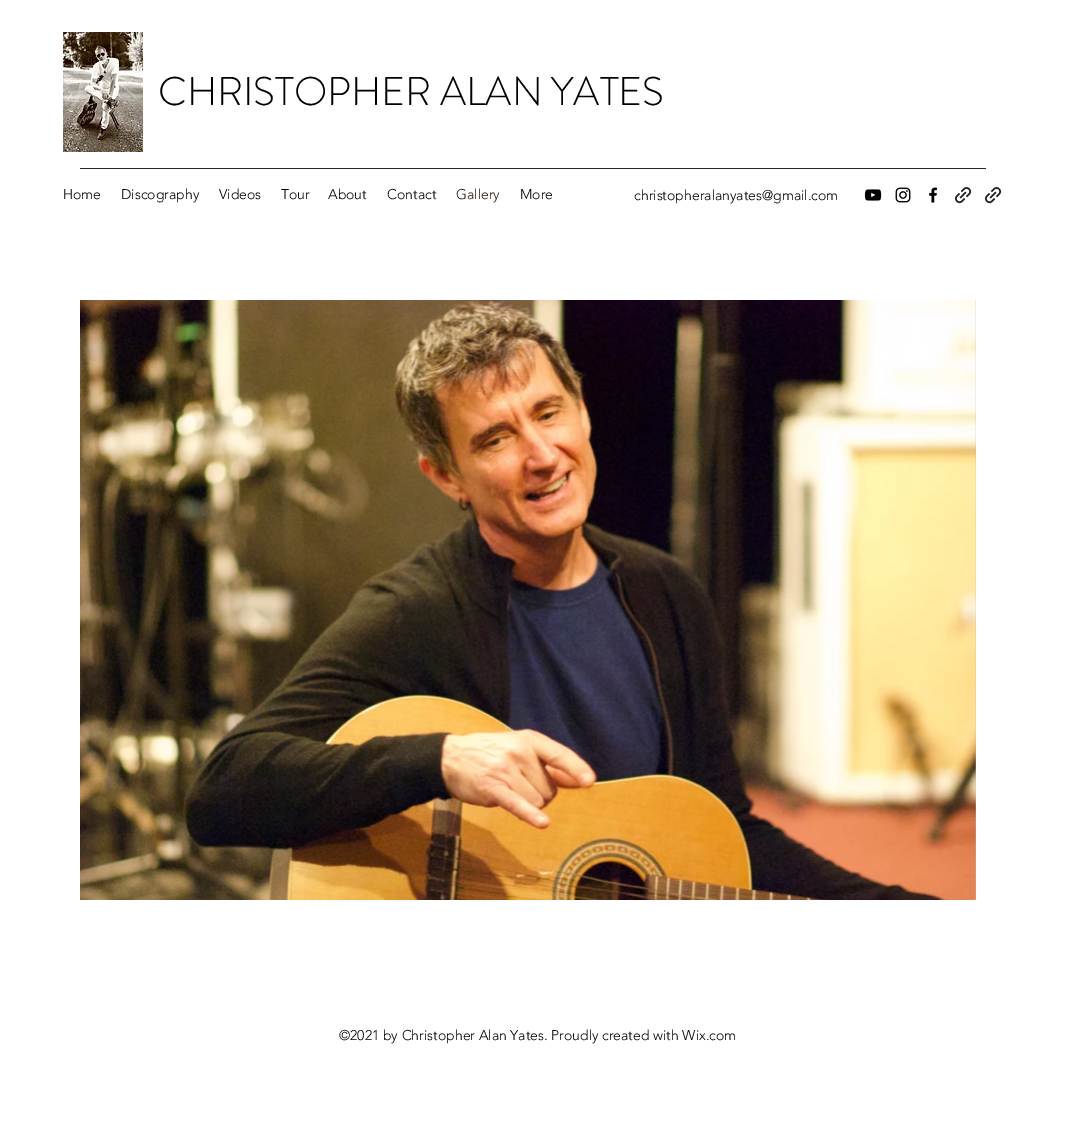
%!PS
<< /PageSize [1066 1143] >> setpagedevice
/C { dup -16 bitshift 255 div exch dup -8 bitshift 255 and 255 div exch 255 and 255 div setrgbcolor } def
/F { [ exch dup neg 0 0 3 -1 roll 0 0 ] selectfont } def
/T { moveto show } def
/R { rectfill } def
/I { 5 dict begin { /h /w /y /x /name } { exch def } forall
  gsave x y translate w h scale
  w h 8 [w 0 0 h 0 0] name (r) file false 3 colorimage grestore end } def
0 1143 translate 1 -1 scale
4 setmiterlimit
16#FFFFFF C
0 0 1066 1143 R
(1.rgb) 63 32 80 120 I
/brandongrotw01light-Light 40 F
16#000000 C
(CHRISTOPHER ALAN YATES) 158 105 T
16#262626 C
80 168 906 1 R
/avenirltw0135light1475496-Light 14 F
16#000000 C
(Home) 63 199 T
(Discography) 121 199 T
(Videos) 219 199 T
(Tour) 281 199 T
(About) 328 199 T
(Contact) 387 199 T
16#2A150D C
(Gallery) 456 199 T
16#000000 C
(More) 520 199 T
(christopheralanyates@gmail.com) 634 200 T
(2.rgb) 864 189 18 12 I
(3.rgb) 895 187 16 16 I
(4.rgb) 929 187 9 16 I
(5.rgb) 954 186 18 18 I
(5.rgb) 984 186 18 18 I
(6.rgb) 80 300 896 600 I
(©2021 by Christopher Alan Yates. Proudly created with Wix.com) 339 1040 T
showpage
